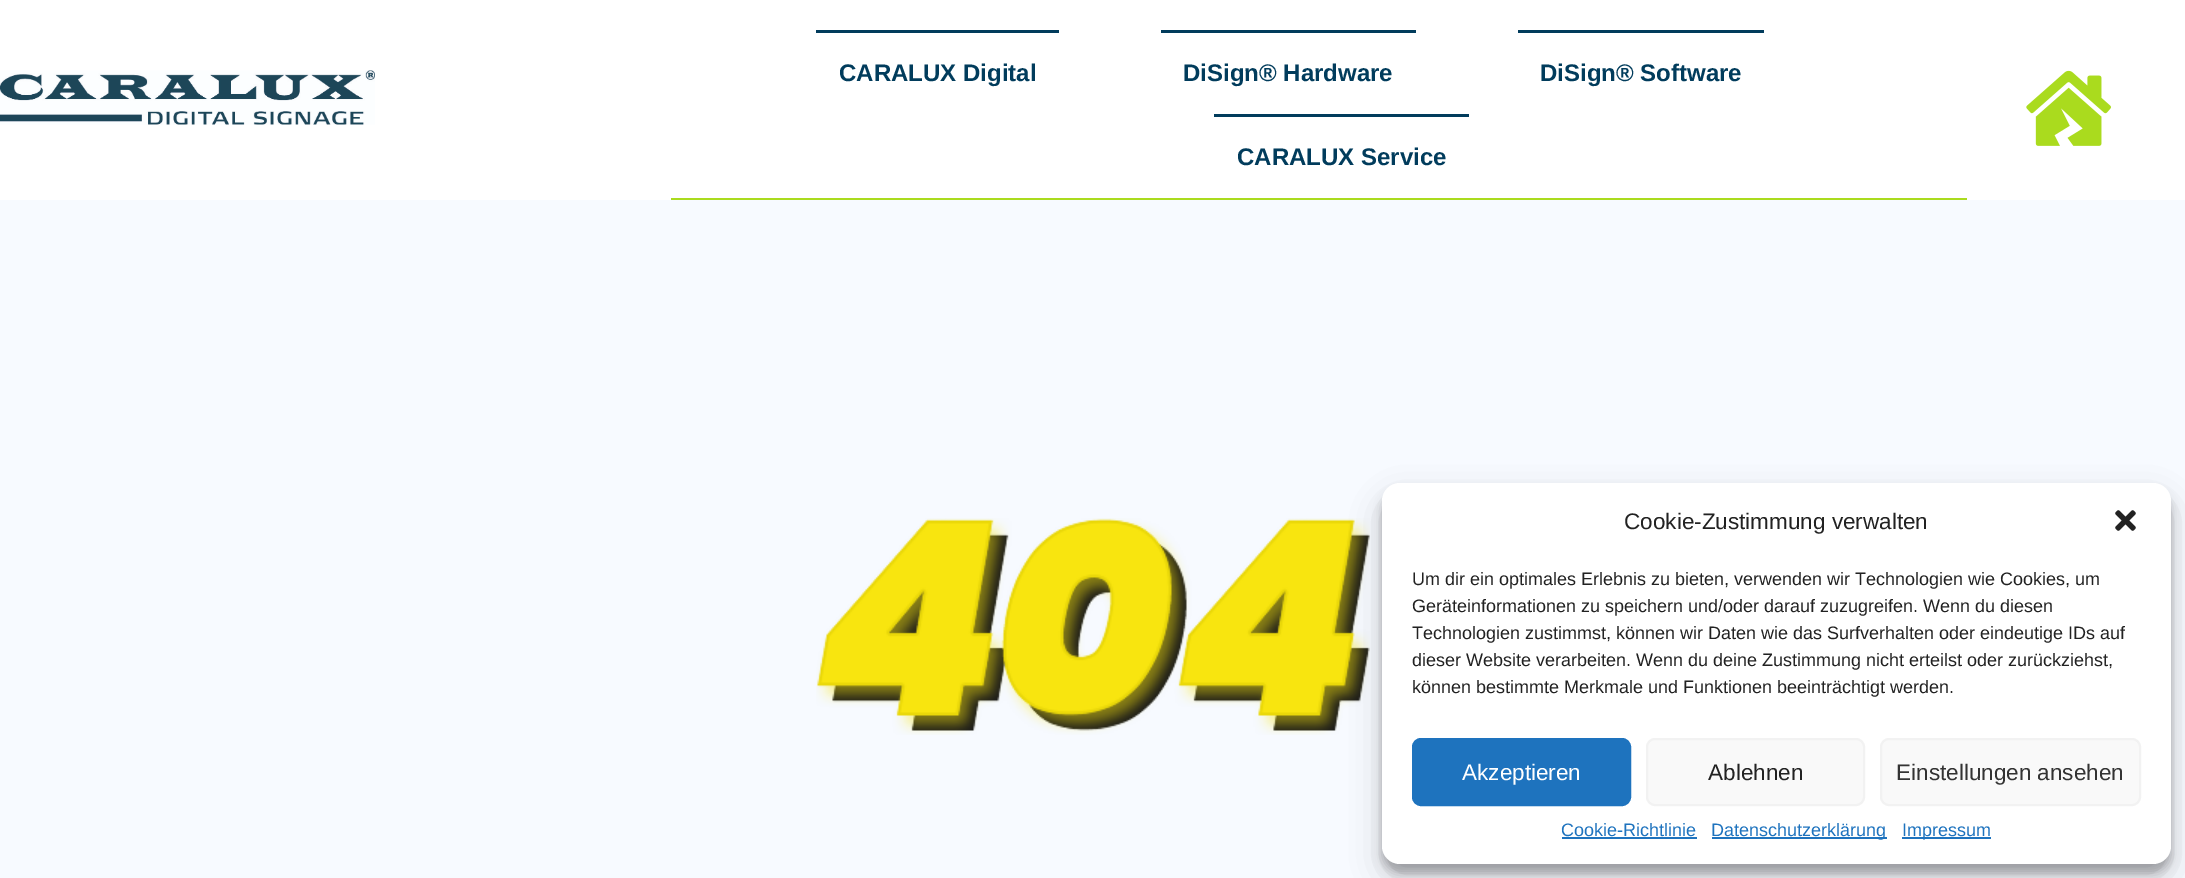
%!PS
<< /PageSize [2185 878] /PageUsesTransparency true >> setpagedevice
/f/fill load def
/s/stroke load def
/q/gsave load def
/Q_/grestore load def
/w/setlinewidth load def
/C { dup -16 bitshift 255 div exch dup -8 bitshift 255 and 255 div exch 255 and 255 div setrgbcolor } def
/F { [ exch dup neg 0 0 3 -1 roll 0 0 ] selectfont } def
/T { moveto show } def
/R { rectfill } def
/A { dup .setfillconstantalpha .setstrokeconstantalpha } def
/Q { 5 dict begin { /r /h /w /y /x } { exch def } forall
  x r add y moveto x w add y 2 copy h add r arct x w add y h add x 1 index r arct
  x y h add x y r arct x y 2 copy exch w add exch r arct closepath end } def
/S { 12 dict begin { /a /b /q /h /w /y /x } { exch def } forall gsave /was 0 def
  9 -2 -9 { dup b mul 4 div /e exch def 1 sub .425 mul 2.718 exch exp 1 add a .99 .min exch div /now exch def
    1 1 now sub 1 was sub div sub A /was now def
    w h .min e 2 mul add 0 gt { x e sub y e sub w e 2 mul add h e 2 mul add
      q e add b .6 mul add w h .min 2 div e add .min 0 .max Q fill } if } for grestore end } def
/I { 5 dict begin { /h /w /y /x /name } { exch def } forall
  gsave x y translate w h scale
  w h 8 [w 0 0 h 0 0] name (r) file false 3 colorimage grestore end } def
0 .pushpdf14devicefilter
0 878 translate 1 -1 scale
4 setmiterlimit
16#FFFFFF C
0 0 2185 878 R
(1.rgb) 0 70 375 55 I
16#013C5C C
816 30 243 3 R
/LiberationSans-Bold 24 F
(CARALUX Digital) 839 81 T
1161 30 255 3 R
(DiSign® Hardware) 1183 81 T
1518 30 246 3 R
(DiSign® Software) 1540 81 T
1214 114 255 3 R
(CARALUX Service) 1237 165 T
16#AADB1E C
671 198 1296 2 R
(2.rgb) 2026 70 85 76 I
16#F7FAFF C
0 200 2185 678 R
(3.rgb) 816 518 554 217 I
16#000000 C
1382 492 789 381 18 4.5 .23 S
1382 498 789 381 18 15 .19 S
16#FFFFFF C
1382 483 789 381 18 Q f
/LiberationSans-Regular 22.5 F
16#222222 C
(Cookie-Zustimmung verwalten) 1624 529 T
(4.rgb) 2115 510 21 21 I
/LiberationSans-Regular 18 F
(Um dir ein optimales Erlebnis zu bieten, verwenden wir Technologien wie Cookies, um) 1412 585 T
(Geräteinformationen zu speichern und/oder darauf zuzugreifen. Wenn du diesen) 1412 612 T
(Technologien zustimmst, können wir Daten wie das Surfverhalten oder eindeutige IDs auf) 1412 639 T
(dieser Website verarbeiten. Wenn du deine Zustimmung nicht erteilst oder zurückziehst,) 1412 666 T
(können bestimmte Merkmale und Funktionen beeinträchtigt werden.) 1412 693 T
16#1E73BE C
1413 739 217 66 8 Q q f Q_
2 w
s
/LiberationSans-Regular 22.5 F
16#FFFFFF C
(Akzeptieren) 1462 780 T
16#F9F9F9 C
1647 739 217 66 8 Q q f Q_
16#F2F2F2 C
s
16#222222 C
(Ablehnen) 1708 780 T
16#F9F9F9 C
1881 739 259 66 8 Q q f Q_
16#F2F2F2 C
s
16#333333 C
(Einstellungen ansehen) 1896 780 T
/LiberationSans-Regular 18 F
16#1E73BE C
(Cookie-Richtlinie) 1561 836 T
1562 837 135 2 R
1712 837 175 2 R
(Datenschutzerklärung) 1711 836 T
1902 837 89 2 R
(Impressum) 1902 836 T
.poppdf14devicefilter showpage
